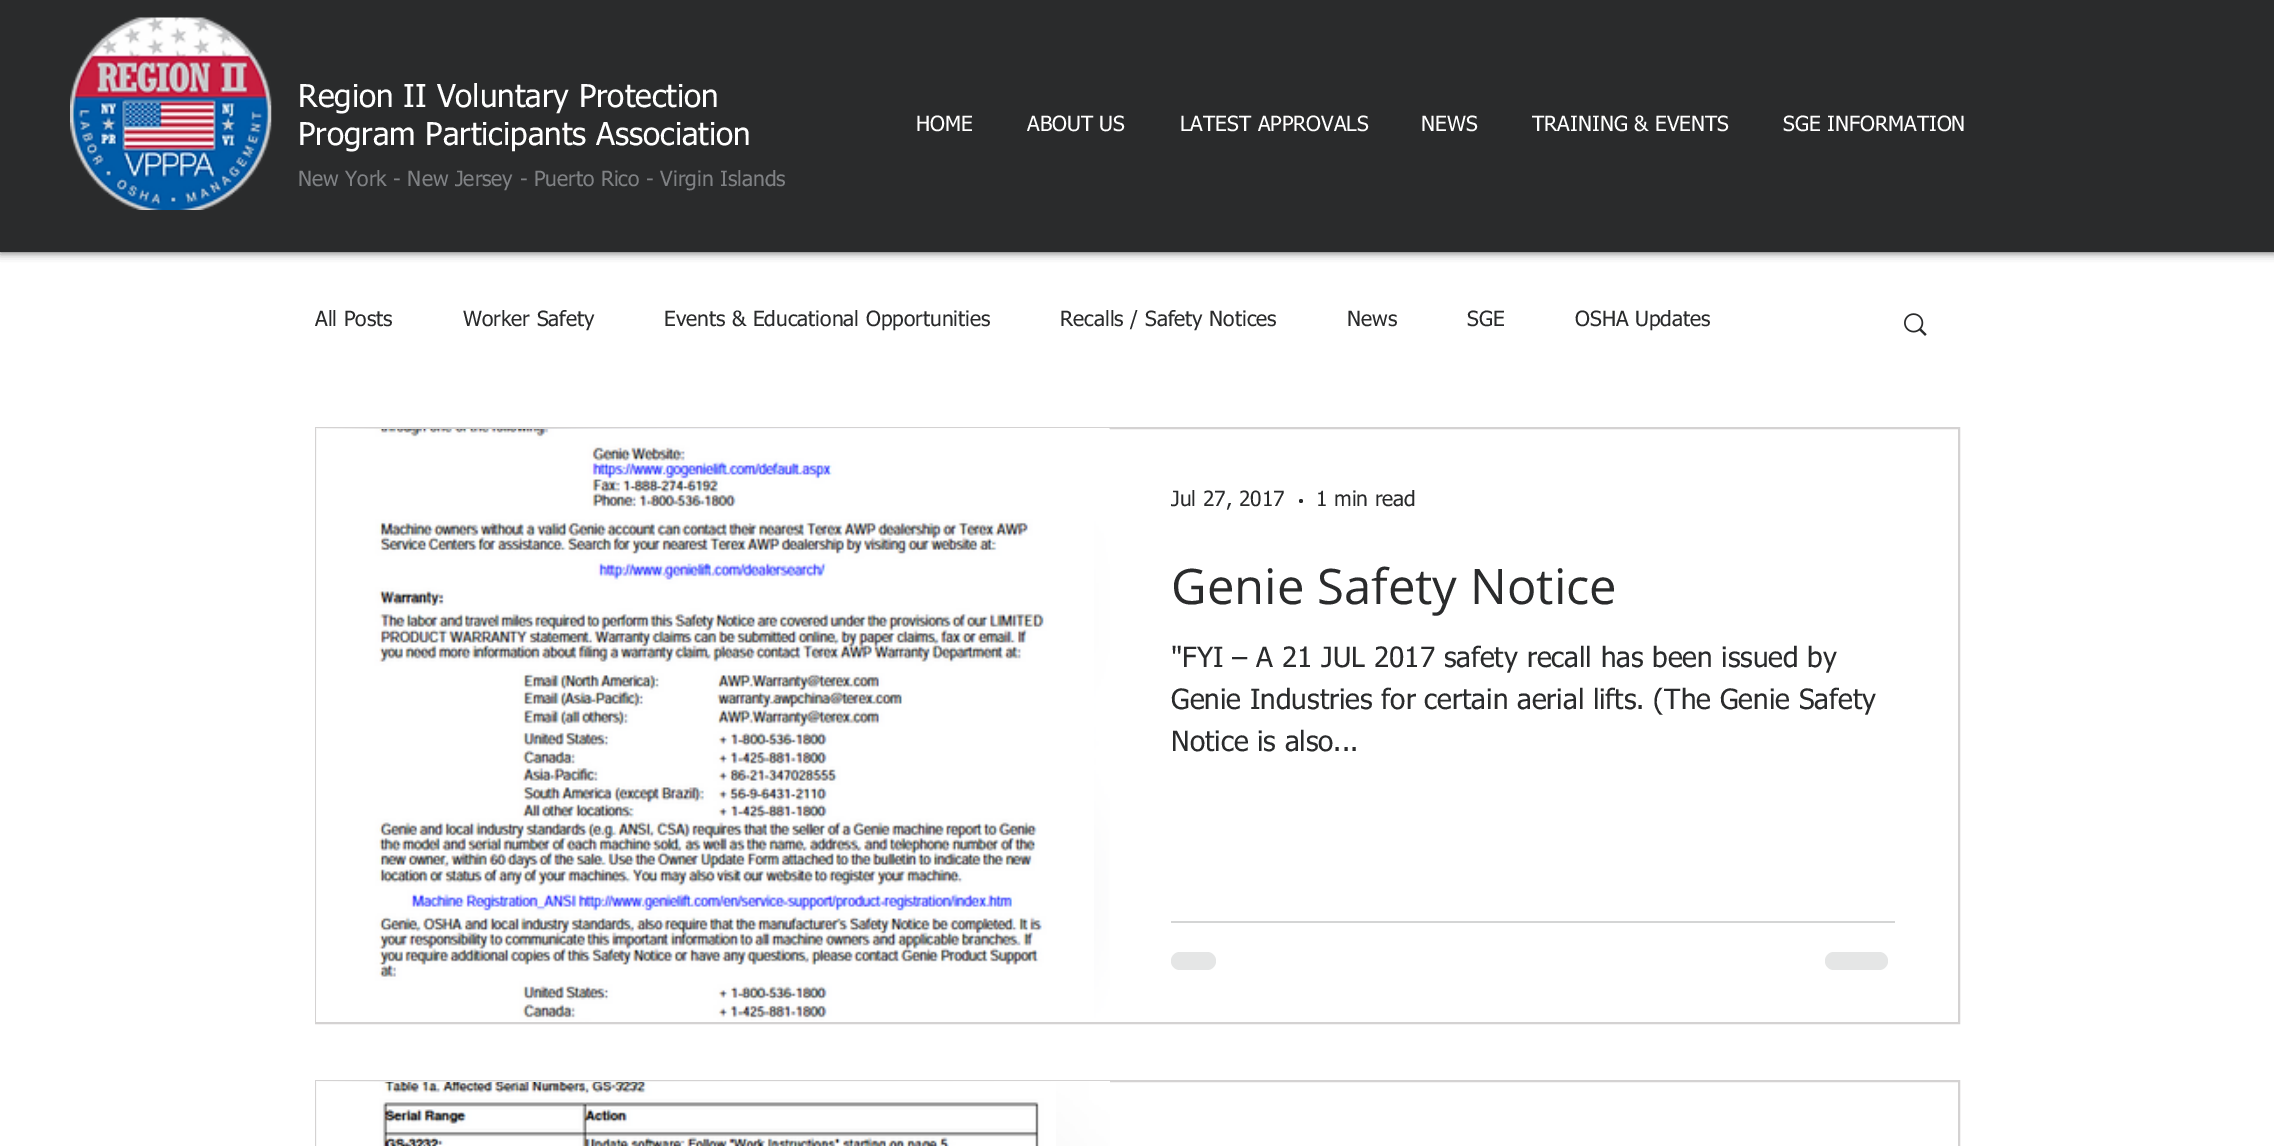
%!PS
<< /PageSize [2274 1146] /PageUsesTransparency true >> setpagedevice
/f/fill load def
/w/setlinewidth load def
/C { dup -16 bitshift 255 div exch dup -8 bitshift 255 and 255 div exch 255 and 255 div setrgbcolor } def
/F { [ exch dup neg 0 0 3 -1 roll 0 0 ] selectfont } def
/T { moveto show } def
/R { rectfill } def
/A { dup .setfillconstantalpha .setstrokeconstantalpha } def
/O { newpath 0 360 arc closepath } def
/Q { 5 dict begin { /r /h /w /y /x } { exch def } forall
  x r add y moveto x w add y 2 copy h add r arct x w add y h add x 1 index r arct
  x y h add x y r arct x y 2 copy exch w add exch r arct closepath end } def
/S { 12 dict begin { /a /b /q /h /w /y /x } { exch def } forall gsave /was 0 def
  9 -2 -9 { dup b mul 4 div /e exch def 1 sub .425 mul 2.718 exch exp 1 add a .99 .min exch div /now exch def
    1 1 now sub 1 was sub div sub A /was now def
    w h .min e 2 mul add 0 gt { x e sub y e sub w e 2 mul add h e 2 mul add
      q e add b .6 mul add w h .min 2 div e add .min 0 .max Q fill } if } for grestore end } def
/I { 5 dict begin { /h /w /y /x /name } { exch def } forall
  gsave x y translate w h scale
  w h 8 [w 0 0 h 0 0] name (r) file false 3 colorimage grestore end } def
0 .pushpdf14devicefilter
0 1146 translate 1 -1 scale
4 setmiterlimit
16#FFFFFF C
0 0 2274 1146 R
16#000000 C
0 0 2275 252 0 4.5 .7 S
16#2A2B2C C
0 0 2274 252 R
(1.rgb) 70 17 202 193 I
/tahoma-Regular 31.5 F
16#FFFFFF C
(Region II Voluntary Protection) 298 107 T
(Program Participants Association) 298 145 T
/tahoma-Regular 21 F
16#7F8184 C
(New York - New Jersey - Puerto Rico - Virgin Islands) 298 186 T
16#FFFFFF C
(HOME) 916 131 T
(ABOUT US) 1027 131 T
(LATEST APPROVALS) 1180 131 T
(NEWS) 1421 131 T
(TRAINING & EVENTS) 1532 131 T
(SGE INFORMATION) 1783 131 T
16#2A2B2C C
(All Posts) 315 326 T
(Worker Safety) 463 326 T
(Events & Educational Opportunities) 664 326 T
(Recalls / Safety Notices) 1060 326 T
(News) 1347 326 T
(SGE) 1467 326 T
(OSHA Updates) 1575 326 T
(2.rgb) 1904 313 23 23 I
16#D4D2D2 C
2 w
316 428 1643 595 rectstroke
(3.rgb) 316 428 794 594 I
(4.rgb) 317 429 777 593 I
16#2A2B2C C
(Jul 27, 2017) 1171 506 T
1301 501 2 O f
(1 min read) 1316 506 T
/OpenSans-Regular 49 F
(Genie Safety Notice) 1171 604 T
/tahoma-Regular 28 F
("FYI – A 21 JUL 2017 safety recall has been issued by) 1171 667 T
(Genie Industries for certain aerial lifts. \(The Genie Safety) 1171 709 T
(Notice is also...) 1171 751 T
16#D4D5D5 C
1171 921 724 2 R
16#E5E6E6 C
1171 952 45 18 9 Q f
1825 952 63 18 9 Q f
16#D4D2D2 C
316 1081 1643 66 rectstroke
(5.rgb) 316 1081 794 65 I
(6.rgb) 317 1082 739 64 I
.poppdf14devicefilter showpage
